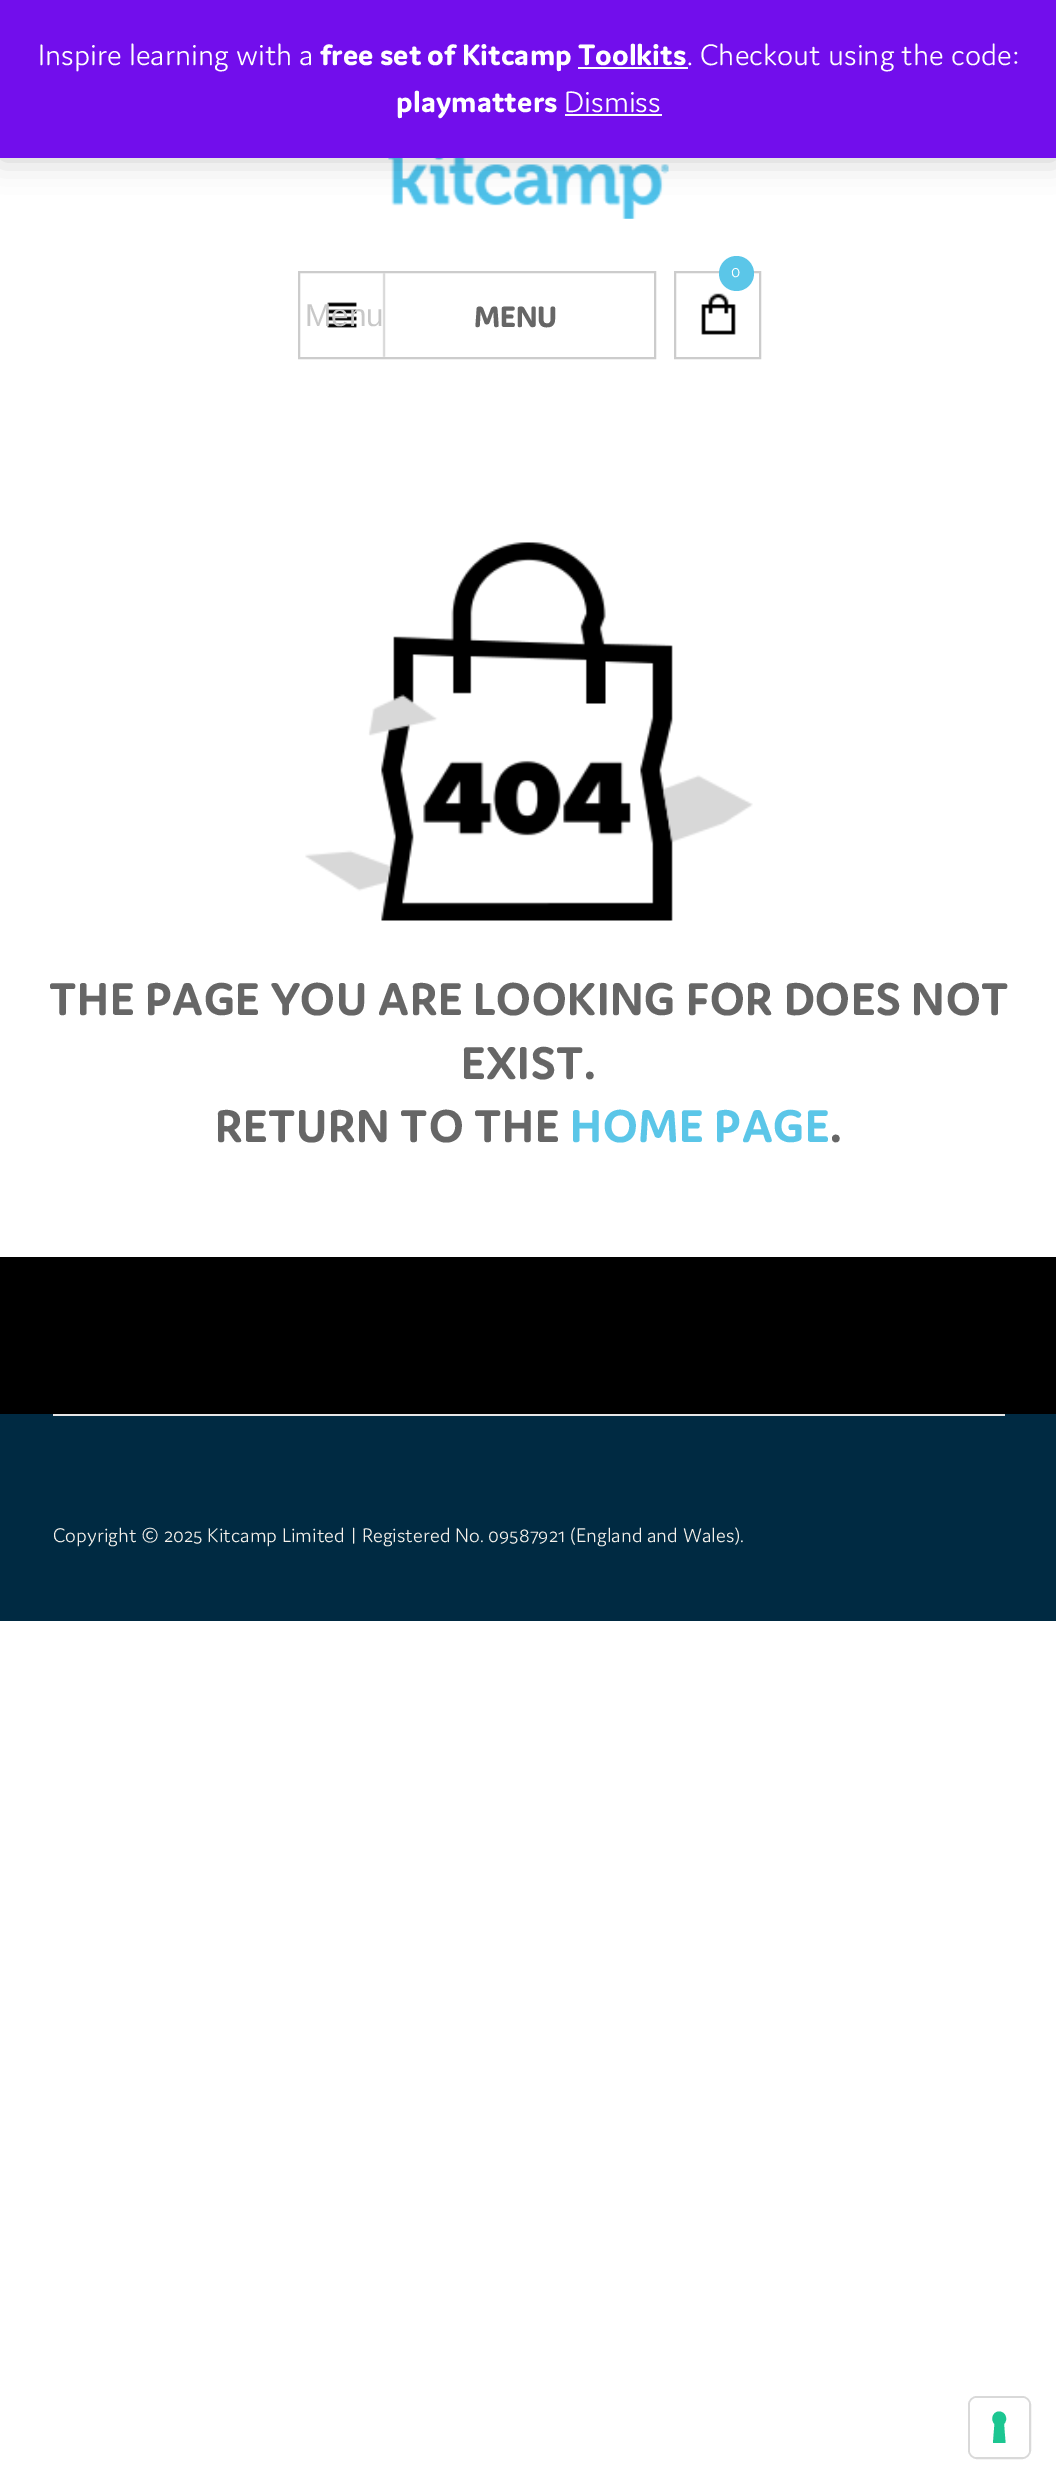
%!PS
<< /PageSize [1056 2485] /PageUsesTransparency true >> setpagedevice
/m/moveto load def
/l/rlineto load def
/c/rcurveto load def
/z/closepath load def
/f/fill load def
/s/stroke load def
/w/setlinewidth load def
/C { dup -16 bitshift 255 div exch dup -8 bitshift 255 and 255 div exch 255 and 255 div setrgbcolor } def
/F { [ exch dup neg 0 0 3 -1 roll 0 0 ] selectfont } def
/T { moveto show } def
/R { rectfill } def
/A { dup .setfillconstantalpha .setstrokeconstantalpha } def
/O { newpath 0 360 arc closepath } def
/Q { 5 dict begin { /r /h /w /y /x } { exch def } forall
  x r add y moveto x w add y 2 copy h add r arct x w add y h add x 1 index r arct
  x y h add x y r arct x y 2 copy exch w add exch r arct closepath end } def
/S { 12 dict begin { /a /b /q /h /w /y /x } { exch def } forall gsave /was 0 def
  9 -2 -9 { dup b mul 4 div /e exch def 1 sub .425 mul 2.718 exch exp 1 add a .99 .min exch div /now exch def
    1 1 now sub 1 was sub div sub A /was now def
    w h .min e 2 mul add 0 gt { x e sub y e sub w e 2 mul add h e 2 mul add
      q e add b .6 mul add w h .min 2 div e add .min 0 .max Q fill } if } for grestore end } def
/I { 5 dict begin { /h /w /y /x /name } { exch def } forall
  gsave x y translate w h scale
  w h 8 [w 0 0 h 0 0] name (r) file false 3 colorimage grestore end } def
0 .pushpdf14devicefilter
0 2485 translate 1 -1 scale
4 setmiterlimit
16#FFFFFF C
0 0 1056 2485 R
(1.rgb) 388 158 281 61 I
16#000000 C
0 2 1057 157 0 16 .2 S
16#720EEC C
0 0 1056 158 R
/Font-Regular 31.5 F
16#FFFFFF C
(Inspire learning with a) 38 65 T
/Font-SemiBold 31.5 F
(free set of Kitcamp Toolkits) 320 65 T
16#FCFBFE C
578 67 110 2 R
/Font-Regular 31.5 F
16#FFFFFF C
(. Checkout using the code:) 687 65 T
/Font-SemiBold 31.5 F
(playmatters) 396 112 T
/Font-Regular 31.5 F
(Dismiss) 564 112 T
16#FCFBFE C
565 114 97 2 R
(2.rgb) 701 293 35 42 I
16#CCCCCC C
2 w
675 272 85 86 rectstroke
16#5BC6E8 C
736.5 273.5 17.5 O f
/Font-Regular 18 F
16#FFFFFF C
(0) 731 277 T
(3.rgb) 327 273 59 84 I
16#CCCCCC C
299 272 356 86 rectstroke
/LiberationSans-Regular 31.5 F
16#C8C8C8 C
(Menu) 305 326 T
/Font-Bold 31.5 F
16#666666 C
(MENU) 474 327 T
(4.rgb) 305 542 448 379 I
/Font-SemiBold 49 F
49 1015 m .75 0 (THE PAGE YOU ARE LOOKING FOR DOES NOT) ashow
461 1079 m .75 0 (EXIST.) ashow
215 1142 m .75 0 (RETURN TO THE) ashow
16#5BC6E8 C
570 1142 m .75 0 (HOME PAGE) ashow
16#666666 C
830 1142 m .75 0 (.) ashow
16#000000 C
0 1257 1056 157 R
16#002A42 C
0 1414 1056 207 R
16#E6E6E6 C
53 1414 952 2 R
/Font-Regular 21 F
16#F5F1EB C
(Copyright © 2025 Kitcamp Limited | Registered No. 09587921 \(England and Wales\).) 53 1542 T
16#D9D9D9 C
969 2397 61 61 8 Q s
16#FFFFFF C
970 2398 59 59 7 Q f
16#1CC691 C
999 2411.5 m 6.5 0 9.5 8 5 12.5 c 1.5 19 l -12.5 0 l 1.5 -19 l -4.5 -4.5 -1.5 -12.5 4.5 -12.5 c z eofill
.poppdf14devicefilter showpage
